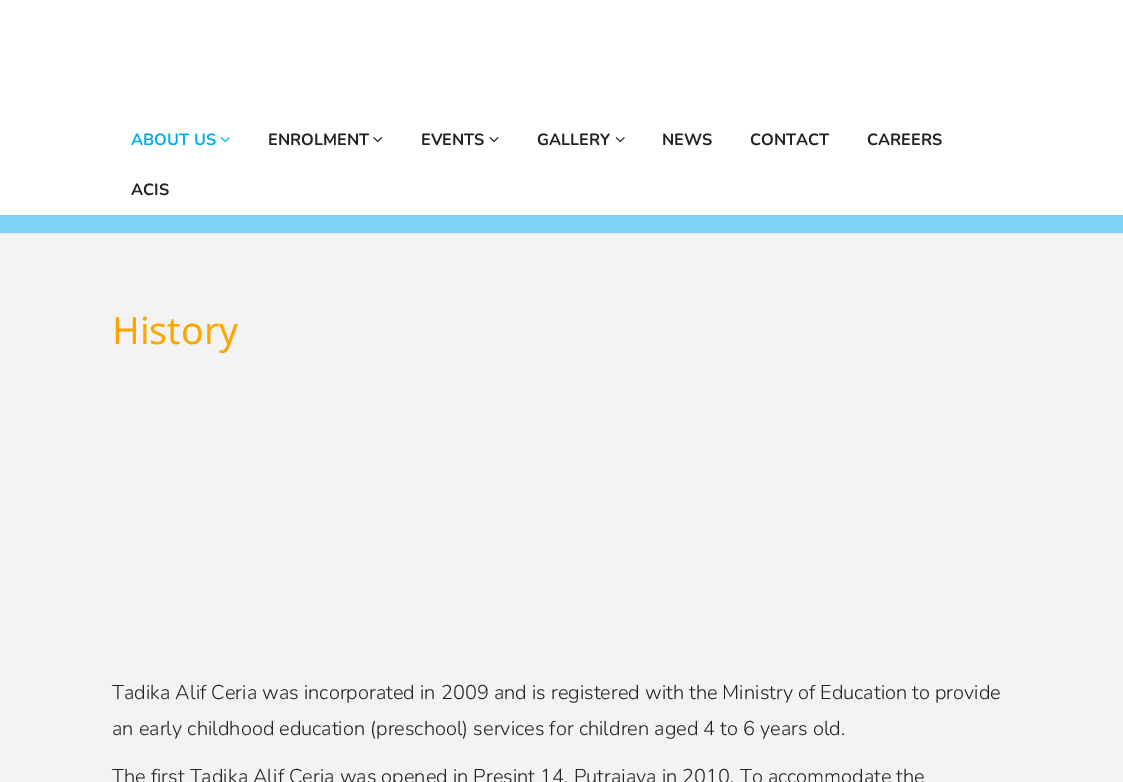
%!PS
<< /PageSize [1123 782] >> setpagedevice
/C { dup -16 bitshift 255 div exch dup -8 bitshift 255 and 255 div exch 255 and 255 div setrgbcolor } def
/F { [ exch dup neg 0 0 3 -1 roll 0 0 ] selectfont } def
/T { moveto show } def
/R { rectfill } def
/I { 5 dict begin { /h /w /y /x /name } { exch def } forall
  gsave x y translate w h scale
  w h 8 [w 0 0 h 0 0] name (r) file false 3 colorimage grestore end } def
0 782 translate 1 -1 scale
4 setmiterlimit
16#7FD2F4 C
0 0 1123 782 R
16#FFFFFF C
0 0 1123 215 R
/Nunito-Bold 16.25 F
16#01AEF0 C
(ABOUT US) 131 145 T
(1.rgb) 220 137 10 6 I
16#222222 C
(ENROLMENT) 268 145 T
(2.rgb) 373 137 10 6 I
(EVENTS) 421 145 T
(3.rgb) 489 137 10 6 I
(GALLERY) 537 145 T
(4.rgb) 615 137 10 6 I
(NEWS) 662 145 T
(CONTACT) 750 145 T
(CAREERS) 867 145 T
(ACIS) 131 195 T
16#F3F3F3 C
0 234 1123 548 R
16#E1E1E1 C
0 233 1123 1 R
/NotoSans-Regular 37.5 F
16#FFA500 C
(History) 112 344 T
/Nunito-Light 20 F
16#222222 C
(Tadika Alif Ceria was incorporated in 2009 and is registered with the Ministry of Education to provide) 112 699 T
(an early childhood education \(preschool\) services for children aged 4 to 6 years old.) 112 735 T
(The first Tadika Alif Ceria was opened in Presint 14, Putrajaya in 2010. To accommodate the) 112 783 T
showpage
